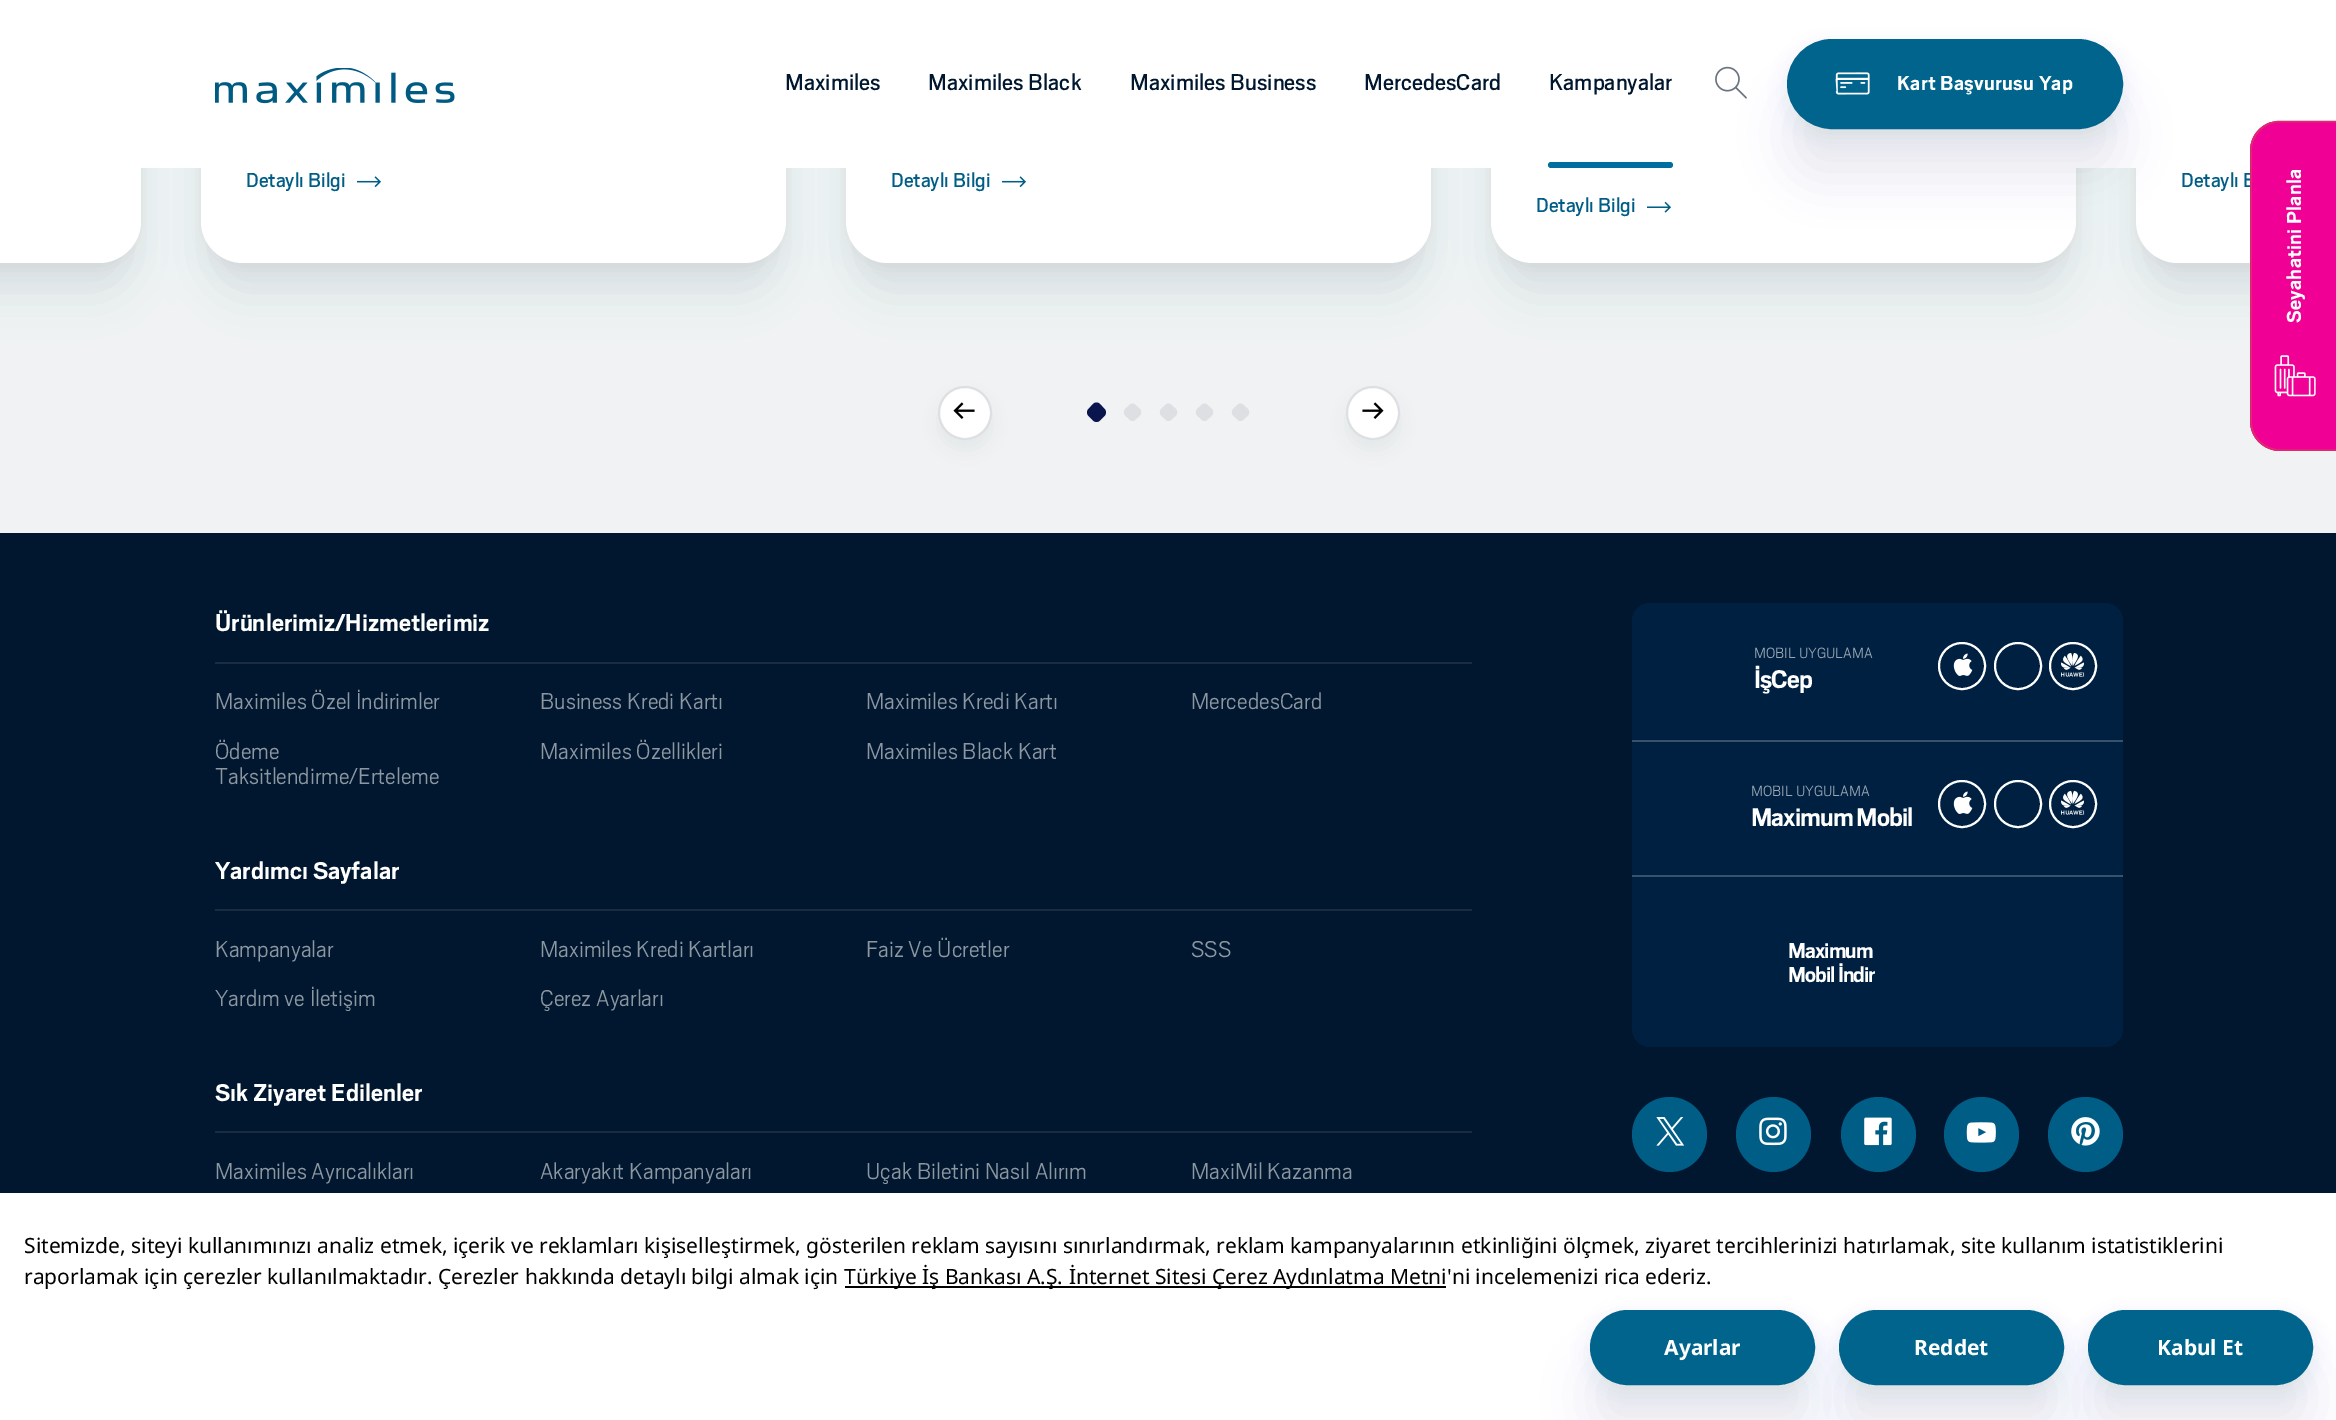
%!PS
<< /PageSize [2336 1420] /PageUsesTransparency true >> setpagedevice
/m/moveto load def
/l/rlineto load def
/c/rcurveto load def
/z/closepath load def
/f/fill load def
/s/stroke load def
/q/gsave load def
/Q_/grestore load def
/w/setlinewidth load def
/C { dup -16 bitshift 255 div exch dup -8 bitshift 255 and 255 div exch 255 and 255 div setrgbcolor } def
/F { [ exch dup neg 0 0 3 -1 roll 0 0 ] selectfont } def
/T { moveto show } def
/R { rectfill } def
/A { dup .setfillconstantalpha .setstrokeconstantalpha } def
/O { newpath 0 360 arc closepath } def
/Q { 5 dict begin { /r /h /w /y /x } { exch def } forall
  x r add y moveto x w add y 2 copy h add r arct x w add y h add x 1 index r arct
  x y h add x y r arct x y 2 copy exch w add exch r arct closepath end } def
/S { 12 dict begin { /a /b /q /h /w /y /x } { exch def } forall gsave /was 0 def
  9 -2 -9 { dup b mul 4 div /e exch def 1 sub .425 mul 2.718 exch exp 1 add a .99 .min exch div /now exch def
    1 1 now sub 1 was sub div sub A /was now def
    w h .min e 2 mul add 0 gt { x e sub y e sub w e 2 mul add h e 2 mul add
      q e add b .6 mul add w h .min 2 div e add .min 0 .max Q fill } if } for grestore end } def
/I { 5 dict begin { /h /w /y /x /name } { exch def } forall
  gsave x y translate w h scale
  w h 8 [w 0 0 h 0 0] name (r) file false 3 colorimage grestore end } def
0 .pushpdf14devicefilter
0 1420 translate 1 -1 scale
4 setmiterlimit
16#00172F C
0 0 2336 1420 R
16#F1F2F3 C
0 168 2336 365 R
16#6B7580 C
-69 -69 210 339 42 9 .12 S
-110 -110 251 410 42 22.5 .14 S
201 -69 585 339 42 9 .12 S
16#FFFFFF C
-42 -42 m 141 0 l 23 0 42 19 42 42 c 0 221 l 0 23 -19 42 -42 42 c -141 0 l z f
16#6B7580 C
201 -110 585 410 42 22.5 .14 S
16#FFFFFF C
201 -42 585 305 42 Q f
16#6B7580 C
846 -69 585 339 42 9 .12 S
846 -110 585 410 42 22.5 .14 S
16#FFFFFF C
846 -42 585 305 42 Q f
16#6B7580 C
2136 -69 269 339 42 9 .12 S
1491 -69 585 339 42 9 .12 S
1491 -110 585 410 42 22.5 .14 S
16#FFFFFF C
1491 -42 585 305 42 Q f
16#6B7580 C
2136 -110 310 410 42 22.5 .14 S
16#FFFFFF C
141 0 1995 168 R
(1.rgb) 215 68 240 36 I
/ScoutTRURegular-Regular 25.5 F
16#00172F C
(Maximiles) 785 90 T
(Maximiles Black) 928 90 T
(Maximiles Business) 1130 90 T
(MercedesCard) 1364 90 T
(Kampanyalar) 1549 90 T
16#006E9E C
1548 162 125 6 3 Q f
(2.rgb) 1715 66 32 33 I
16#FFFFFF C
2178 -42 m 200 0 l 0 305 l -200 0 l -23 0 -42 -19 -42 -42 c 0 -221 l 0 -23 19 -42 42 -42 c z f
16#6B7580 C
1787 47 336 90 45 9 .12 S
1787 89 336 90 45 22.5 .14 S
16#00648C C
1788 40 334 88 44 Q q f Q_
2 w
s
(3.rgb) 1835 72 35 23 I
/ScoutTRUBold-Bold 22.5 F
16#FFFFFF C
1897 90 m .25 0 (Kart Başvurusu Yap) ashow
/ScoutTRURegular-Regular 22.5 F
16#005D86 C
(Detaylı B) 2181 187 T
16#DD2C6E C
2250 421 m 0 -270 l 0 -17 13 -30 30 -30 c 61 0 l 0 330 l -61 0 l -17 0 -30 -14 -30 -30 c z f
16#F00095 C
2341 449 m 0 2 l -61 0 l -4 0 -7 -1 -10 -2 c z f
2250 421 m 0 13 8 24 20 28 c 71 0 l 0 -327 l -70 0 l -12 4 -21 15 -21 29 c z f
16#DD2C6E C
1.5 w
2251 421 m 0 -270 l 0 -16.5 13 -29.5 29 -29.5 c 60 0 l 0 328.5 l -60 0 l -16 0 -29 -13 -29 -29 c z s
/ScoutTRUBold-Bold 22.5 F
16#FFFFFF C
q 2301 323 translate -90 rotate 0 0 m .25 0 (Seyahatini Planla) ashow Q_
(4.rgb) 2274 355 42 42 I
/ScoutTRURegular-Regular 22.5 F
16#005D86 C
(Detaylı Bilgi) 246 187 T
(5.rgb) 357 176 24 12 I
(Detaylı Bilgi) 891 187 T
(5.rgb) 1002 176 24 12 I
(Detaylı Bilgi) 1536 212 T
(6.rgb) 1647 201 24 12 I
16#053E57 C
938 396 54 54 27 9 .06 S
16#FFFFFF C
965 413 26 O q f Q_
16#DDDFE2 C
2 w
s
(7.rgb) 953 402 22 17 I
16#0B154D C
1100 404 m 4.5 5 l 2 1.5 2 5 0 7 c -4.5 4.5 l -2 2 -5 2 -7 0 c -4.5 -4.5 l -2 -2 -2 -5.5 0 -7 c 4.5 -5 l 2 -2 5 -2 7 0 c z f
16#DDDFE2 C
1135.5 405 m 4.5 4 l 1.5 2 1.5 4.5 0 6.5 c -4.5 4 l -1.5 2 -4.5 2 -6 0 c -4.5 -4 l -1.5 -2 -1.5 -4.5 0 -6.5 c 4.5 -4 l 1.5 -2 4.5 -2 6 0 c z 1171.5 405 m 4.5 4 l 1.5 2 1.5 4.5 0 6.5 c -4.5 4 l -1.5 2 -4.5 2 -6 0 c -4.5 -4 l -1.5 -2 -1.5 -4.5 0 -6.5 c 4.5 -4 l 1.5 -2 4.5 -2 6 0 c z f
1207.5 405 m 4.5 4 l 1.5 2 1.5 4.5 0 6.5 c -4.5 4 l -1.5 2 -4.5 2 -6 0 c -4.5 -4 l -1.5 -2 -1.5 -4.5 0 -6.5 c 4.5 -4 l 1.5 -2 4.5 -2 6 0 c z 1243.5 405 m 4.5 4 l 1.5 2 1.5 4.5 0 6.5 c -4.5 4 l -1.5 2 -4.5 2 -6 0 c -4.5 -4 l -1.5 -2 -1.5 -4.5 0 -6.5 c 4.5 -4 l 1.5 -2 4.5 -2 6 0 c z f
16#053E57 C
1346 396 54 54 27 9 .06 S
16#FFFFFF C
1373 413 26 O q f Q_
16#DDDFE2 C
s
(8.rgb) 1362 402 22 17 I
16#1A2C40 C
215 662 1257 2 R
/ScoutTRUBold-Bold 27 F
16#FFFFFF C
(Ürünlerimiz/Hizmetlerimiz) 215 631 T
/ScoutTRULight-Light 25.5 F
16#8C97A1 C
(Maximiles Özel İndirimler) 215 709 T
(Business Kredi Kartı) 540 709 T
(Maximiles Kredi Kartı) 866 709 T
(MercedesCard) 1191 709 T
(Ödeme) 215 759 T
(Taksitlendirme/Erteleme) 215 784 T
(Maximiles Özellikleri) 540 759 T
(Maximiles Black Kart) 866 759 T
16#1A2C40 C
215 909 1257 2 R
/ScoutTRUBold-Bold 27 F
16#FFFFFF C
(Yardımcı Sayfalar) 215 879 T
/ScoutTRULight-Light 25.5 F
16#8C97A1 C
(Kampanyalar) 215 957 T
(Maximiles Kredi Kartları) 540 957 T
(Faiz Ve Ücretler) 866 957 T
(SSS) 1191 957 T
(Yardım ve İletişim) 215 1006 T
(Çerez Ayarları) 540 1006 T
16#1A2C40 C
215 1131 1257 2 R
/ScoutTRUBold-Bold 27 F
16#FFFFFF C
(Sık Ziyaret Edilenler) 215 1101 T
/ScoutTRULight-Light 25.5 F
16#8C97A1 C
(Maximiles Ayrıcalıkları) 215 1179 T
(Akaryakıt Kampanyaları) 540 1179 T
(Uçak Biletini Nasıl Alırım) 866 1179 T
(MaxiMil Kazanma) 1191 1179 T
16#002041 C
1632 603 491 444 18 Q f
16#39526B C
1632 740 491 2 R
/ScoutTRULight-Light 16.5 F
16#99A6B3 C
(MOBIL UYGULAMA) 1754 658 T
/ScoutTRUBold-Bold 28.5 F
16#FFFFFF C
1754 688 m -1 0 (İşCep) ashow
1962 666 23 O s
(9.rgb) 1953 653 20 23 I
2018 666 23 O s
2073 666 23 O s
(10.rgb) 2061 653 24 24 I
16#39526B C
1632 875 491 2 R
/ScoutTRULight-Light 16.5 F
16#99A6B3 C
(MOBIL UYGULAMA) 1751 796 T
/ScoutTRUBold-Bold 28.5 F
16#FFFFFF C
1751 826 m -1 0 (Maximum Mobil) ashow
1962 804 23 O s
(9.rgb) 1953 791 20 23 I
2018 804 23 O s
2073 804 23 O s
(10.rgb) 2061 791 24 24 I
/ScoutTRUBold-Bold 24 F
1788 958 m -1 0 (Maximum) ashow
1788 982 m -1 0 (Mobil İndir) ashow
16#005D86 C
1669.5 1134.5 37.5 O f
(11.rgb) 1656 1117 29 29 I
1773.5 1134.5 37.5 O f
(12.rgb) 1759 1117 28 29 I
1878.5 1134.5 37.5 O f
(13.rgb) 1864 1117 28 29 I
1981.5 1134.5 37.5 O f
(14.rgb) 1966 1122 30 21 I
2085.5 1134.5 37.5 O f
(15.rgb) 2071 1117 29 29 I
16#FFFFFF C
0 1193 2336 227 R
/NotoSans-Regular 21 F
16#000000 C
(Sitemizde, siteyi kullanımınızı analiz etmek, içerik ve reklamları kişiselleştirmek, gösterilen reklam sayısını sınırlandırmak, reklam kampanyalarının etkinliğini ölçmek, ziyaret tercihlerinizi hatırlamak, site kullanım istatistiklerini) 24 1253 T
(raporlamak için çerezler kullanılmaktadır. Çerezler hakkında detaylı bilgi almak için) 24 1284 T
845 1286 601 2 R
(Türkiye İş Bankası A.Ş. İnternet Sitesi Çerez Aydınlatma Metni'ni incelemenizi rica ederiz.) 844 1284 T
16#6B7580 C
1590 1317 225 75 37.5 9 .12 S
1590 1359 225 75 37.5 22.5 .14 S
16#00648C C
1591.5 1311.5 222 72 36 Q q f Q_
3 w
s
/NotoSans-Bold 21 F
16#FFFFFF C
(Ayarlar) 1664 1355 T
16#6B7580 C
1839 1317 225 75 37.5 9 .12 S
1839 1359 225 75 37.5 22.5 .14 S
16#00648C C
1840.5 1311.5 222 72 36 Q q f Q_
s
16#FFFFFF C
(Reddet) 1914 1355 T
16#6B7580 C
2088 1317 225 75 37.5 9 .12 S
2088 1359 225 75 37.5 22.5 .14 S
16#00648C C
2089.5 1311.5 222 72 36 Q q f Q_
s
16#FFFFFF C
(Kabul Et) 2157 1355 T
.poppdf14devicefilter showpage
